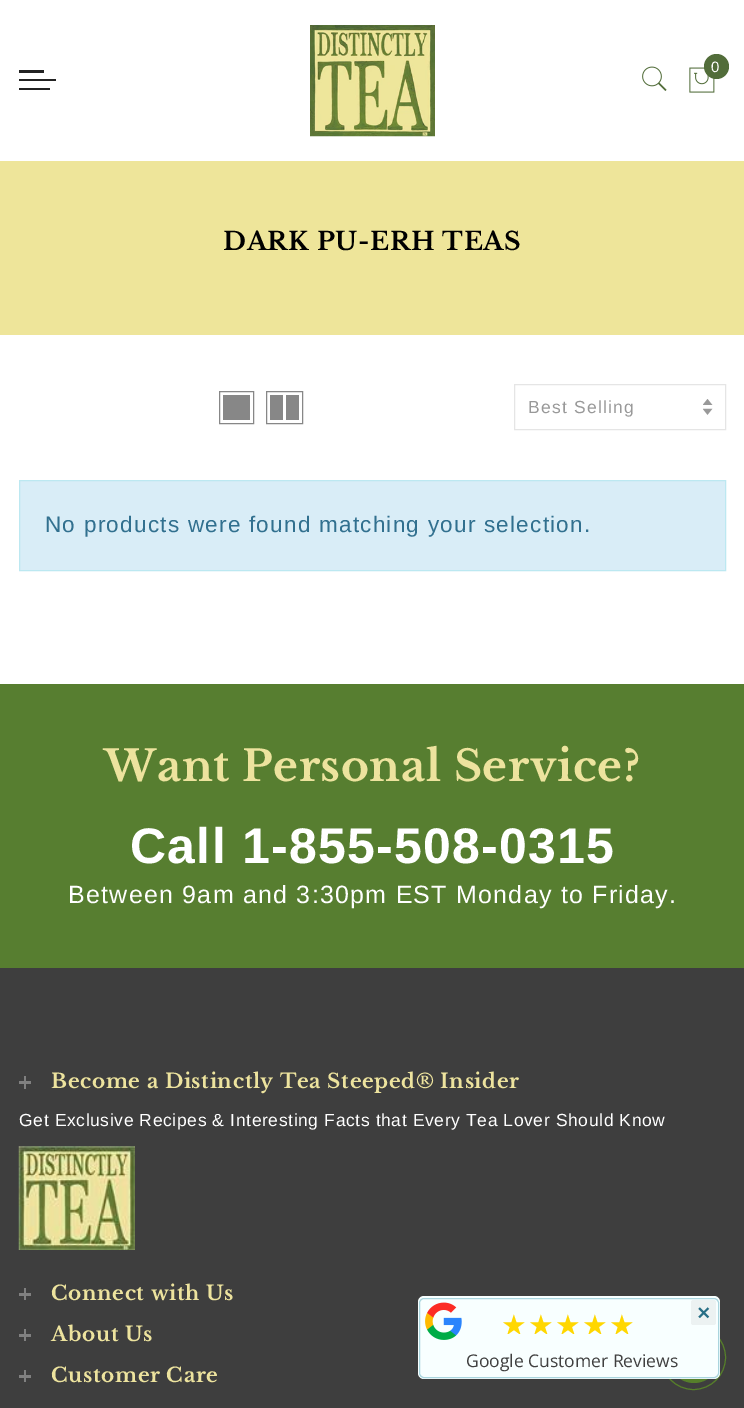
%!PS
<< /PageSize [744 1408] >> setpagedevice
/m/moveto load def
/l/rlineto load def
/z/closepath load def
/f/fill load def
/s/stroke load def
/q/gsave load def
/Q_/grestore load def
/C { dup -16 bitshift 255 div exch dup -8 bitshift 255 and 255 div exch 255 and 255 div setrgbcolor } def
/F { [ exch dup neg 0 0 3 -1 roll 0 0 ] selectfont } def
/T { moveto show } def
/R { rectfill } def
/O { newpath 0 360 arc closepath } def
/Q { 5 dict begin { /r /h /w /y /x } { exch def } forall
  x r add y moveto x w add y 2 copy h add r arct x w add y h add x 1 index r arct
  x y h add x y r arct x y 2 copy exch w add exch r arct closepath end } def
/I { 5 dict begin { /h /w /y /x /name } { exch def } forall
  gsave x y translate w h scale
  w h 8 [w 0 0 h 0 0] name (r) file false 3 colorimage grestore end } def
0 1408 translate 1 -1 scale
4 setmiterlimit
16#FFFFFF C
0 0 744 1408 R
(1.rgb) 310 25 125 112 I
(2.rgb) 642 66 25 25 I
(3.rgb) 689 67 26 26 I
16#526D3A C
716.5 66.5 12.5 O f
/LiberationSans-Regular 15 F
16#FFFFFF C
711 72 m 1.25 0 (0) ashow
16#222222 C
19 70 25 3 R
19 79 37 2 R
19 88 31 2 R
16#EEE59A C
0 161 744 174 R
/LibreBaskerville-Bold 25 F
16#000000 C
223 250 m .62 0 (DARK PU-ERH TEAS) ashow
16#878787 C
219.5 391.5 34 32 rectstroke
223 395 27 25 R
266.5 391.5 36 32 rectstroke
286 395 13 25 R
270 395 13 25 R
(4.rgb) 703 399 10 16 I
16#E5E5E5 C
514.5 384.5 211 45 rectstroke
/LiberationSans-Regular 17.5 F
16#999999 C
528 413 m 1.25 0 (Best Selling) ashow
16#D9EDF7 C
19.5 480.5 m 706 0 l 0 90 l -706 0 l z q f Q_
16#BCE8F1 C
s
/LiberationSans-Regular 22.5 F
16#31708F C
45 532 m 1.25 0 (No products were found matching your selection.) ashow
16#577E30 C
0 684 744 284 R
/LibreBaskerville-Bold 42.5 F
16#EDE39E C
104 781 m .62 0 (Want Personal Service?) ashow
/LiberationSans-Bold 50 F
16#FFFFFF C
130 863 m 1.25 0 (Call 1-855-508-0315) ashow
/LiberationSans-Regular 25 F
68 903 m 1.25 0 (Between 9am and 3:30pm EST Monday to Friday.) ashow
16#3E3E3E C
0 968 744 440 R
16#808080 C
24 1076 2 13 R
19 1081 12 3 R
/LibreBaskerville-Bold 20 F
16#EDE39E C
51 1088 m .62 0 (Become a Distinctly Tea Steeped® Insider) ashow
/LiberationSans-Regular 17.5 F
16#FFFFFF C
19 1126 m .62 0 (Get Exclusive Recipes & Interesting Facts that Every Tea Lover Should Know) ashow
(5.rgb) 18 1146 117 104 I
16#808080 C
24 1288 2 12 R
19 1293 12 3 R
/LibreBaskerville-Bold 20 F
16#EDE39E C
51 1300 m .62 0 (Connect with Us) ashow
16#808080 C
24 1329 2 12 R
19 1334 12 3 R
16#EDE39E C
51 1341 m .62 0 (About Us) ashow
16#808080 C
24 1370 2 12 R
19 1375 12 3 R
16#EDE39E C
51 1382 m .62 0 (Customer Care) ashow
16#567F2A C
693.5 1357.5 32 O s
694 1358 25 O f
16#F8FFFF C
418 1296 302 83 6 Q f
16#A9D5DE C
419.5 1298.5 299 79 4.5 Q s
16#ECF2F2 C
691 1300 25 25 2.5 Q f
/OpenSans-Bold 22.5 F
16#276F86 C
697 1321 m 1.25 0 (×) ashow
(6.rgb) 425 1302 37 38 I
q
501 1309 135 25 rectclip
/DejaVuSans-Regular 28.75 F
16#FFD700 C
501 1335 m 1.25 0 (★★★★★) ashow
Q_
/OpenSans-Regular 17.5 F
16#404040 C
(Google Customer Reviews) 466 1367 T
showpage
